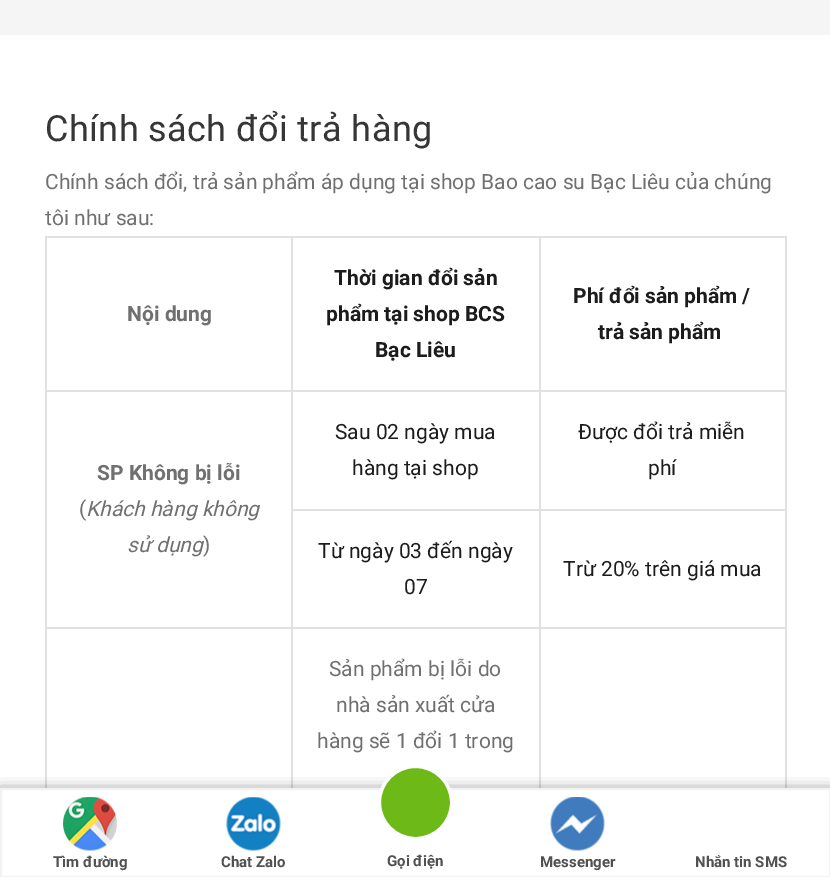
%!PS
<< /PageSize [830 877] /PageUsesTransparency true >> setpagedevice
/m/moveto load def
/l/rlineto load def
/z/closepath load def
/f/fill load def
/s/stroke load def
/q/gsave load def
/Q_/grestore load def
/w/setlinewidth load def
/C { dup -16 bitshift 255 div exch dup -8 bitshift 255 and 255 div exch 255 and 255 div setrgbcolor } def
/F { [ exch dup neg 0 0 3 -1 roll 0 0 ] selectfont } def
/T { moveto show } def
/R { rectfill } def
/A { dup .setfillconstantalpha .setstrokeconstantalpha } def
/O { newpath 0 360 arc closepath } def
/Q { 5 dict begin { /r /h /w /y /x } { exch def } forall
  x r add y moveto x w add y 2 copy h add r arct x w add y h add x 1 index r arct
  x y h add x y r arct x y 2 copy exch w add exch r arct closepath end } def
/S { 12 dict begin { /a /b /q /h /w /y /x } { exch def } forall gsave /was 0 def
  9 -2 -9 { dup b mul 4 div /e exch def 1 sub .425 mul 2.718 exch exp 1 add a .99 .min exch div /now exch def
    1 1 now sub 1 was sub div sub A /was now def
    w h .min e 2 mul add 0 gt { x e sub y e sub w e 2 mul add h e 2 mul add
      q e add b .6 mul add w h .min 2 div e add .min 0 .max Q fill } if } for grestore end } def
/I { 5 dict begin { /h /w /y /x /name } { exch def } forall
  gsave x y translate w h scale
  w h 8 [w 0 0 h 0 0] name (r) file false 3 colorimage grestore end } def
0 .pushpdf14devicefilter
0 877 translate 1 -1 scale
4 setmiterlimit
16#FFFFFF C
0 0 830 877 R
16#F5F5F5 C
0 0 830 35 R
/Roboto-Regular 36 F
16#363636 C
45 141 m .4 0 (Chính sách đổi trả hàng) ashow
/Roboto-Regular 21 F
16#707070 C
(Chính sách đổi, trả sản phẩm áp dụng tại shop Bao cao su Bạc Liêu của chúng) 45 189 T
(tôi như sau:) 45 225 T
16#E1E1E1 C
539 236 247 2 R
539 390 247 2 R
539 509 247 2 R
539 627 247 2 R
539 627 2 161 R
291 627 249 2 R
539 509 2 120 R
291 509 249 2 R
539 390 2 120 R
291 390 249 2 R
539 236 2 156 R
291 236 249 2 R
291 627 2 161 R
45 627 248 2 R
291 509 2 120 R
291 390 2 120 R
45 390 248 2 R
291 236 2 156 R
45 236 248 2 R
45 627 2 161 R
45 390 2 239 R
45 236 2 156 R
/Roboto-Bold 21 F
16#707070 C
(Nội dung) 127 321 T
16#1C1C1C C
(Thời gian đổi sản) 334 285 T
(phẩm tại shop BCS) 326 321 T
(Bạc Liêu) 375 357 T
16#E1E1E1 C
785 627 2 161 R
785 509 2 120 R
785 390 2 120 R
785 236 2 156 R
16#1C1C1C C
(Phí đổi sản phẩm /) 573 303 T
(trả sản phẩm) 598 339 T
/Roboto-Regular 21 F
(Sau 02 ngày mua) 335 439 T
(hàng tại shop) 352 475 T
(Được đổi trả miễn) 578 439 T
(phí) 648 475 T
/Roboto-Bold 21 F
16#707070 C
(SP Không bị lỗi) 97 480 T
/Roboto-Regular 21 F
(\() 79 516 T
/Roboto-Italic 21 F
(Khách hàng không) 86 516 T
(sử dụng) 127 552 T
/Roboto-Regular 21 F
(\)) 203 552 T
16#1C1C1C C
(Từ ngày 03 đến ngày) 318 558 T
(07) 404 594 T
(Trừ 20% trên giá mua) 563 576 T
16#707070 C
(Sản phẩm bị lỗi do) 329 676 T
(nhà sản xuất cửa) 336 712 T
(hàng sẽ 1 đổi 1 trong) 317 748 T
16#000000 C
0 794 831 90 0 7.5 1 S
16#FFFFFF C
1 789 m 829 0 l 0 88 l -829 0 l z q f Q_
16#F2F2F2 C
2 w
s
(1.rgb) 63 797 54 54 I
/Roboto-Bold 15 F
16#515151 C
(Tìm đường) 53 867 T
(2.rgb) 226 797 55 54 I
(Chat Zalo) 221 867 T
16#6CB917 C
415.5 802.5 36 O q f Q_
16#FFFFFF C
3 w
s
16#515151 C
(Gọi điện) 387 866 T
(3.rgb) 550 797 55 54 I
(Messenger) 540 867 T
(Nhắn tin SMS) 695 867 T
.poppdf14devicefilter showpage
